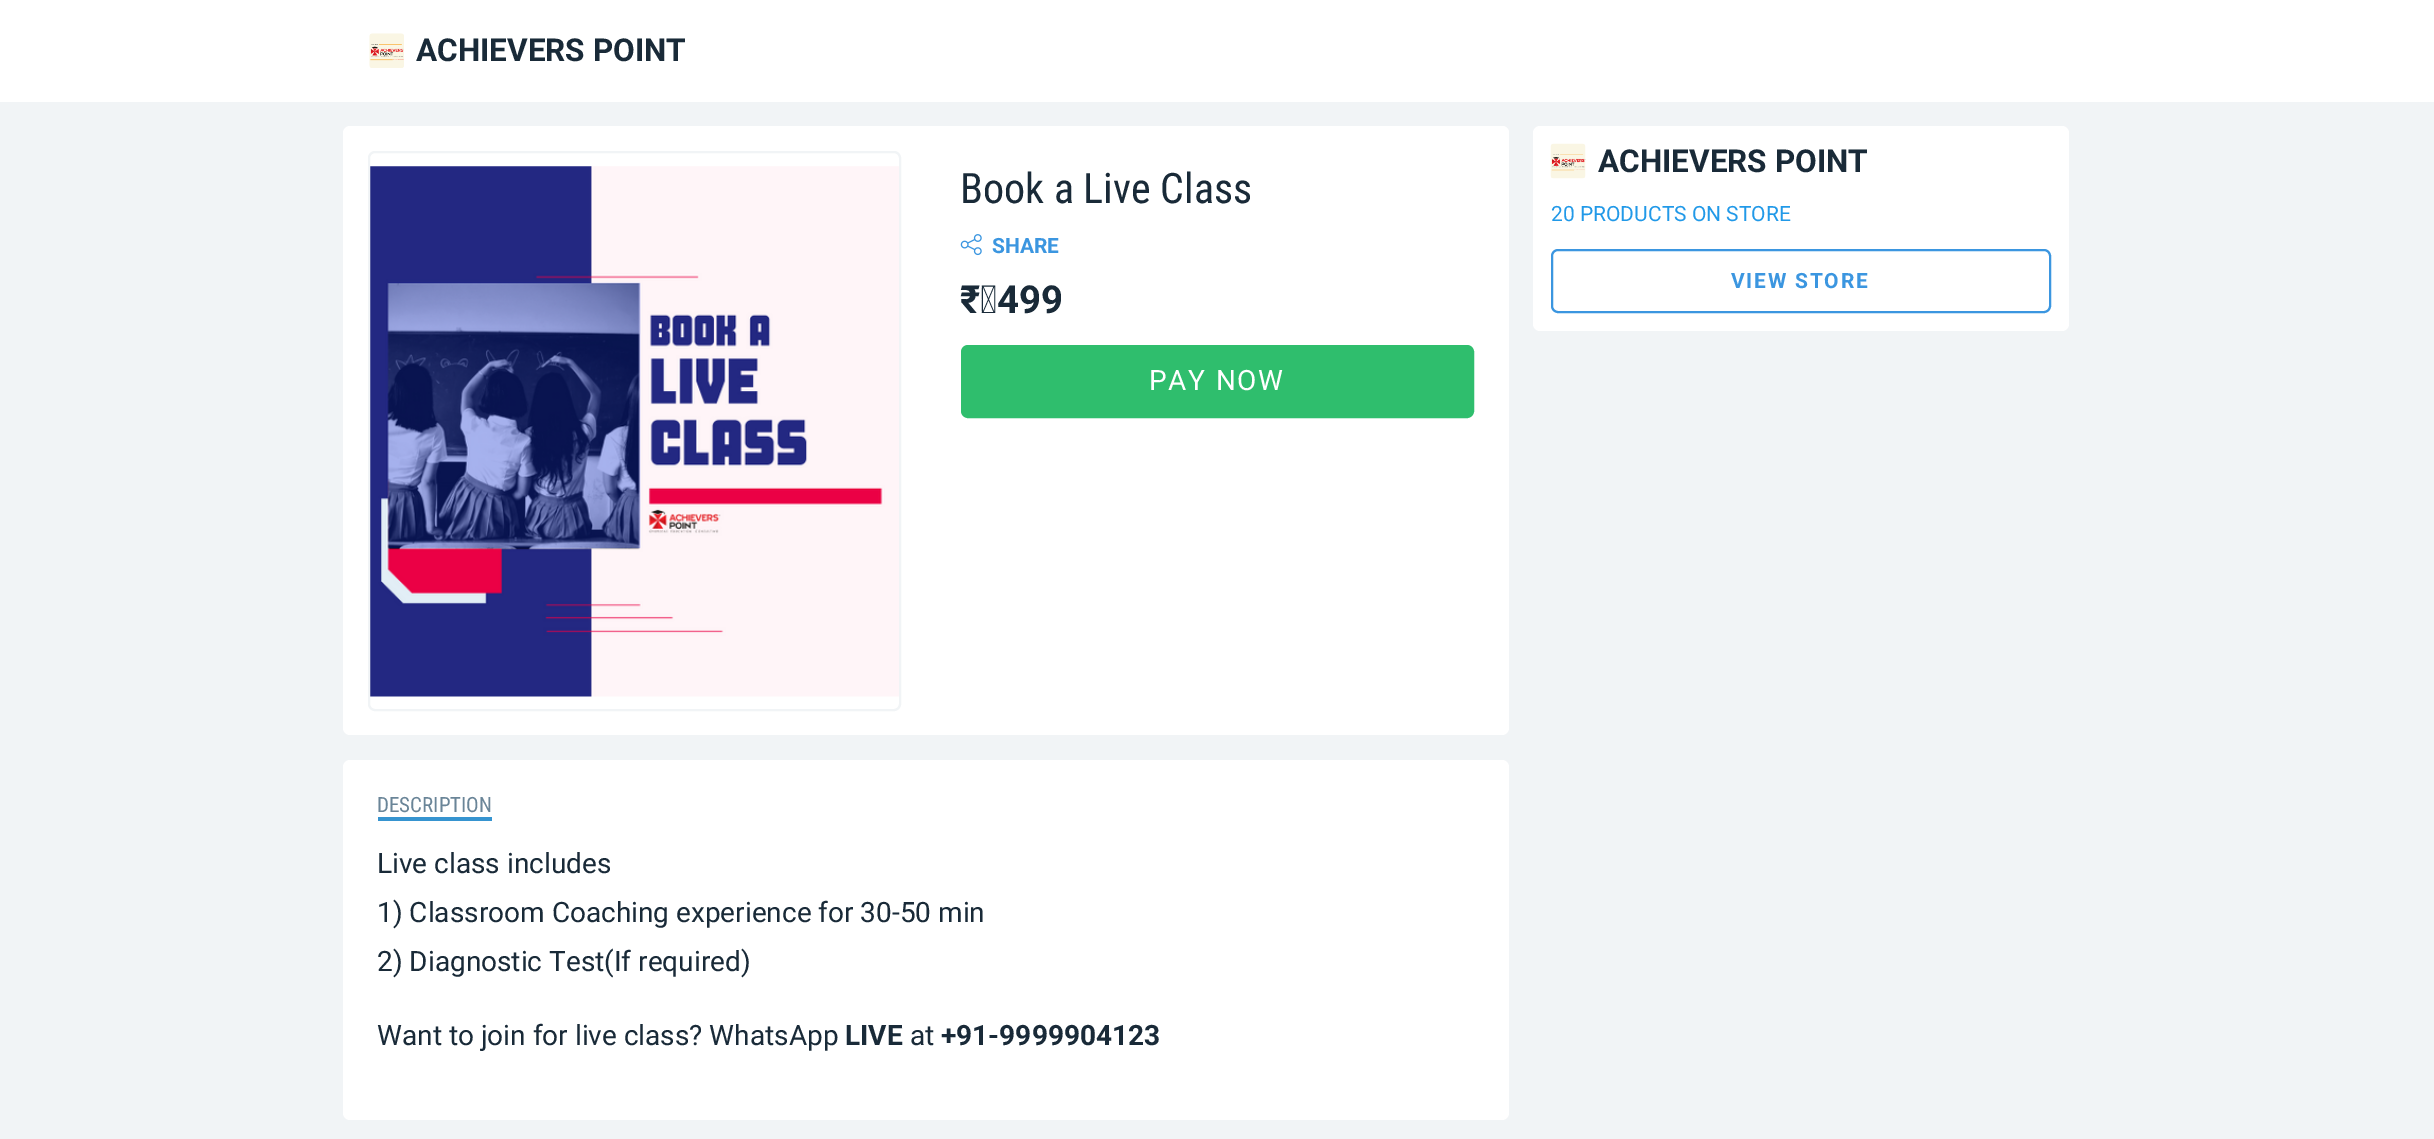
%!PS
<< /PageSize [2434 1139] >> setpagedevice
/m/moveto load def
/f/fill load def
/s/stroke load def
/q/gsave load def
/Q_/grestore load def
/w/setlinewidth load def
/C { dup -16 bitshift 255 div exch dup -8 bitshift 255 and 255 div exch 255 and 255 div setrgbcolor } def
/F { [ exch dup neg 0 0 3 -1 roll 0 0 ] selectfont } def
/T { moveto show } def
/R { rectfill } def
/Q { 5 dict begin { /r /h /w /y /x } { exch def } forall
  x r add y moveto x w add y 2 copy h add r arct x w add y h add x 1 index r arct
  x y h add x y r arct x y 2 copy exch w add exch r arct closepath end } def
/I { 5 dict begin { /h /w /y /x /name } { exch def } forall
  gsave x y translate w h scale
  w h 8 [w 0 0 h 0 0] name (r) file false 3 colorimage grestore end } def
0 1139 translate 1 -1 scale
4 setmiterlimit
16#F1F4F6 C
0 0 2434 1139 R
16#FFFFFF C
0 0 2434 102 R
(1.rgb) 369 33 35 35 I
/Roboto-Bold 31.5 F
16#192A38 C
(ACHIEVERS POINT) 416 61 T
16#FFFFFF C
343 126 1166 609 7 Q f
(2.rgb) 370 166 529 531 I
16#F1F4F6 C
2 w
369 152 531 558 6 Q s
16#FFFFFF C
926 126 583 327 7 Q f
/RobotoCondensed-Regular 42 F
16#192A38 C
(Book a Live Class) 960 203 T
(3.rgb) 960 234 22 22 I
/Roboto-Bold 21 F
16#3B96E0 C
(SHARE) 992 253 T
/Roboto-Bold 38.5 F
16#192A38 C
(₹ 499) 960 313 T
16#2FBE6D C
962 346 511 71 6 Q q f Q_
s
/Roboto-Regular 28 F
16#FFFFFF C
1149 390 m 1.75 0 (PAY NOW) ashow
343 760 1166 360 7 Q f
/RobotoCondensed-Regular 21 F
16#6A8598 C
(DESCRIPTION) 377 812 T
16#3694D0 C
378 817 114 4 R
/Roboto-Regular 28 F
16#192A38 C
(Live class includes) 377 873 T
(1\) Classroom Coaching experience for 30-50 min) 377 922 T
(2\) Diagnostic Test\(If required\)) 377 971 T
(Want to join for live class? WhatsApp) 377 1045 T
/Roboto-Bold 28 F
(LIVE) 845 1045 T
/Roboto-Regular 28 F
(at) 910 1045 T
/Roboto-Bold 28 F
(+91-9999904123) 941 1045 T
16#FFFFFF C
1533 126 536 205 7 Q f
(4.rgb) 1550 143 36 36 I
/Roboto-Bold 31.5 F
16#192A38 C
(ACHIEVERS POINT) 1598 172 T
/Roboto-Regular 21 F
16#2199E8 C
(20 PRODUCTS ON STORE) 1551 221 T
16#3B96E0 C
1552 250 498 62 6 Q s
/Roboto-Bold 21 F
1731 288 m 1.75 0 (VIEW STORE) ashow
showpage
